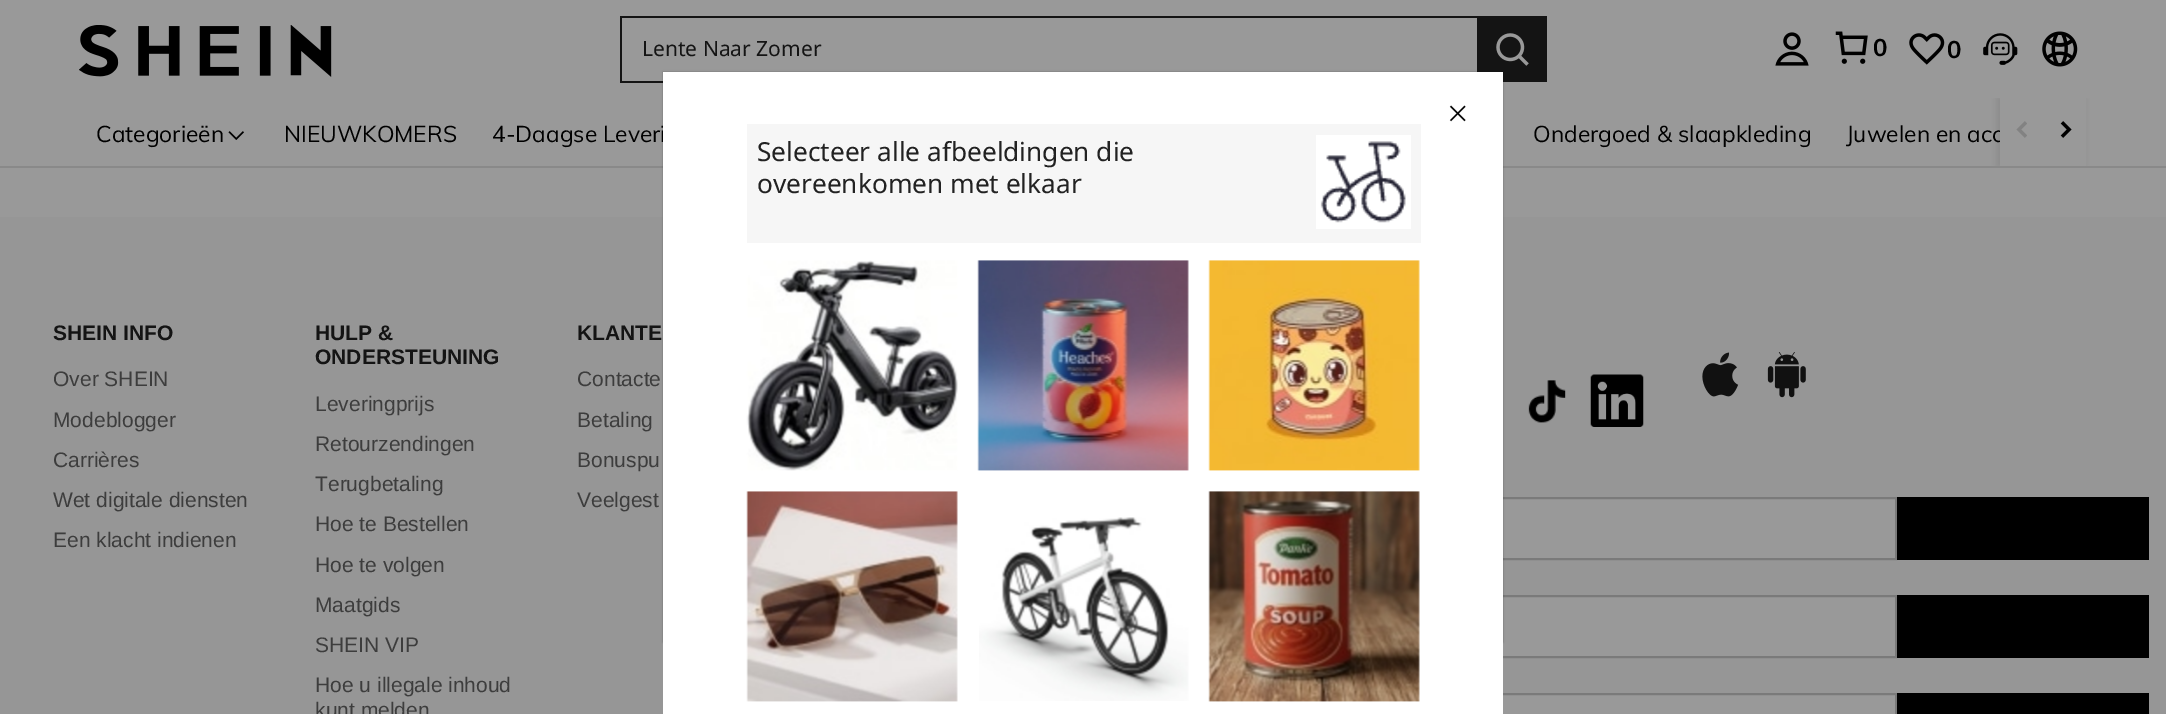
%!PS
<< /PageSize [2166 714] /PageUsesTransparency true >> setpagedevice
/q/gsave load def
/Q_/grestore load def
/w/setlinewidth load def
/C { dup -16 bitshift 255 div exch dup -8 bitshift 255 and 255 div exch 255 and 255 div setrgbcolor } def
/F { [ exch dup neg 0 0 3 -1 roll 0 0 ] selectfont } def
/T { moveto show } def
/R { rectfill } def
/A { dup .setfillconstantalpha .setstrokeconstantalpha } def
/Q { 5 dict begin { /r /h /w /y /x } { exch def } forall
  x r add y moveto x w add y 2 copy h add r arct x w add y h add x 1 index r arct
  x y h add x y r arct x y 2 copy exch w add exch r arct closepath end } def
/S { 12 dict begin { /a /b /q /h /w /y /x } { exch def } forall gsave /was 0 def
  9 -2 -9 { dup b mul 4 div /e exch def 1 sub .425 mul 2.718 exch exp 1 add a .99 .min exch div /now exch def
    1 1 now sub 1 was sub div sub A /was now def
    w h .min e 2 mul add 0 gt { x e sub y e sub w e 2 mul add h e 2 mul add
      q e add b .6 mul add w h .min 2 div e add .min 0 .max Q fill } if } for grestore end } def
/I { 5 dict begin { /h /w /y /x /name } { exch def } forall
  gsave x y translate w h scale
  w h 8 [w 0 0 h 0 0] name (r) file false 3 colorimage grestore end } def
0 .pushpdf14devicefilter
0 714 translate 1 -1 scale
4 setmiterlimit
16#999999 C
0 0 2166 714 R
(1.rgb) 79 25 253 52 I
16#141414 C
620 16 857 2 R
620 81 43 2 R
620 16 2 66 R
/NotoSans-Regular 21 F
(Lente Naar Zomer) 642 56 T
1477 16 70 66 R
(2.rgb) 1496 33 33 33 I
(3.rgb) 1775 32 34 34 I
(4.rgb) 1835 31 33 33 I
/Muli-Bold 24 F
16#000000 C
(0) 1873 56 T
(5.rgb) 1909 33 36 32 I
(0) 1947 58 T
(6.rgb) 1983 33 35 32 I
(7.rgb) 2042 31 36 36 I
16#898989 C
0 166 2166 2 R
/Muli-Regular 22.75 F
16#000000 C
(Categorieën) 96 142 T
(8.rgb) 228 131 16 9 I
(NIEUWKOMERS) 284 142 T
(4-Daagse Leveri) 492 142 T
(Ondergoed & slaapkleding) 1533 142 T
(Juwelen en acc) 1846 142 T
q
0 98 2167 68 rectclip
1997 98 87 68 0 2.5 .08 S
Q_
16#999999 C
2000 98 86 68 R
(9.rgb) 2016 121 11 17 I
(10.rgb) 2060 121 12 17 I
16#969696 C
0 217 2166 497 R
/LiberationSans-Bold 21 F
16#141414 C
(SHEIN INFO) 53 340 T
/LiberationSans-Regular 21 F
16#3D3D3D C
(Over SHEIN) 53 386 T
(Modeblogger) 53 427 T
(Carrières) 53 467 T
(Wet digitale diensten) 53 507 T
(Een klacht indienen) 53 547 T
/LiberationSans-Bold 21 F
16#141414 C
(HULP &) 315 340 T
(ONDERSTEUNING) 315 364 T
/LiberationSans-Regular 21 F
16#3D3D3D C
(Leveringprijs) 315 411 T
(Retourzendingen) 315 451 T
(Terugbetaling) 315 491 T
(Hoe te Bestellen) 315 531 T
(Hoe te volgen) 315 572 T
(Maatgids) 315 612 T
(SHEIN VIP) 315 652 T
(Hoe u illegale inhoud) 315 692 T
(kunt melden) 315 717 T
/LiberationSans-Bold 21 F
16#141414 C
(KLANTE) 577 340 T
/LiberationSans-Regular 21 F
16#3D3D3D C
(Contacte) 577 386 T
(Betaling) 577 427 T
(Bonuspu) 577 467 T
(Veelgest) 577 507 T
(11.rgb) 1528 380 38 43 I
(12.rgb) 1590 374 54 53 I
(13.rgb) 1702 352 37 45 I
(14.rgb) 1767 352 39 46 I
16#999999 C
1503 499 392 59 R
16#7A7A7A C
2 w
1102 498 794 61 rectstroke
16#000000 C
1897 497 252 63 R
16#999999 C
1503 597 392 59 R
16#7A7A7A C
1242 596 654 61 rectstroke
16#000000 C
1897 595 252 63 R
16#999999 C
1503 695 392 19 R
16#7A7A7A C
1242 694 654 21 rectstroke
16#000000 C
1897 693 252 21 R
663 72 840 570 0 1 .3 S
16#FFFFFF C
663 72 840 642 R
(15.rgb) 1449 105 17 17 I
16#F6F6F6 C
747 124 674 119 R
/NotoSans-Regular 26.25 F
16#222222 C
(Selecteer alle afbeeldingen die) 757 161 T
(overeenkomen met elkaar) 757 193 T
16#FFFFFF C
1316 135 95 94 R
(16.rgb) 1320 141 86 82 I
(17.rgb) 746 260 212 211 I
(18.rgb) 977 260 212 211 I
(19.rgb) 1208 260 212 211 I
(20.rgb) 746 491 212 211 I
(21.rgb) 979 517 210 184 I
(22.rgb) 1208 491 212 211 I
.poppdf14devicefilter showpage
